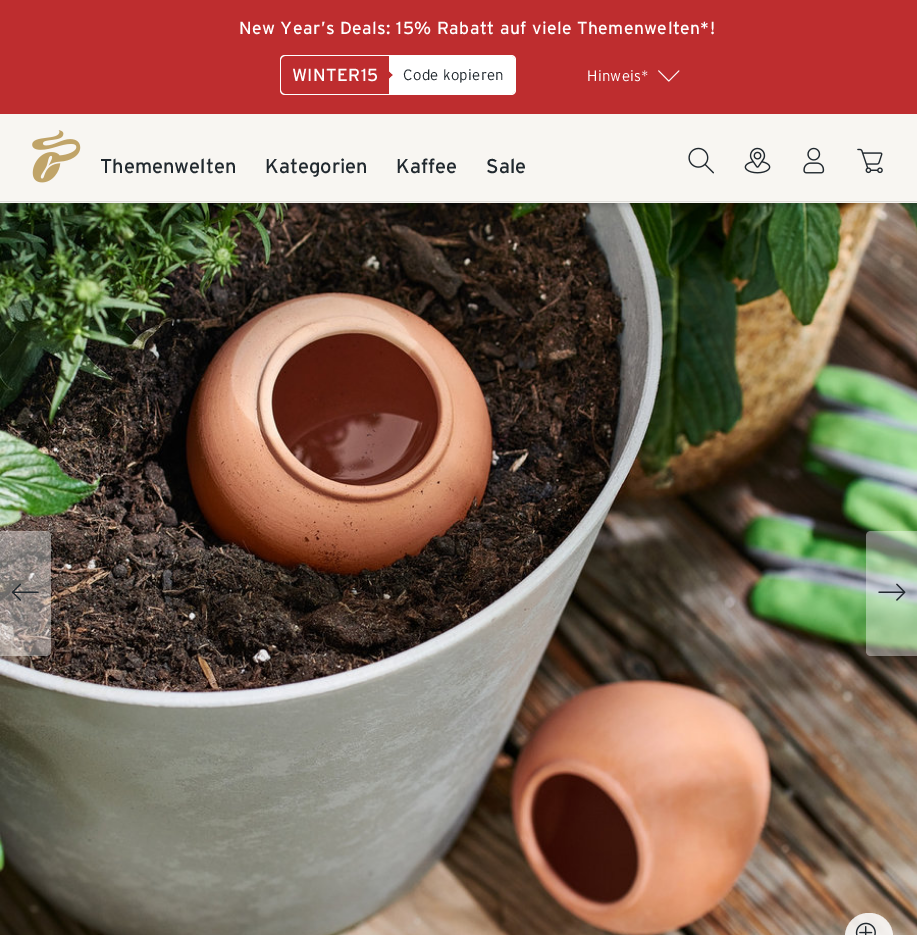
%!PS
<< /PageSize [917 935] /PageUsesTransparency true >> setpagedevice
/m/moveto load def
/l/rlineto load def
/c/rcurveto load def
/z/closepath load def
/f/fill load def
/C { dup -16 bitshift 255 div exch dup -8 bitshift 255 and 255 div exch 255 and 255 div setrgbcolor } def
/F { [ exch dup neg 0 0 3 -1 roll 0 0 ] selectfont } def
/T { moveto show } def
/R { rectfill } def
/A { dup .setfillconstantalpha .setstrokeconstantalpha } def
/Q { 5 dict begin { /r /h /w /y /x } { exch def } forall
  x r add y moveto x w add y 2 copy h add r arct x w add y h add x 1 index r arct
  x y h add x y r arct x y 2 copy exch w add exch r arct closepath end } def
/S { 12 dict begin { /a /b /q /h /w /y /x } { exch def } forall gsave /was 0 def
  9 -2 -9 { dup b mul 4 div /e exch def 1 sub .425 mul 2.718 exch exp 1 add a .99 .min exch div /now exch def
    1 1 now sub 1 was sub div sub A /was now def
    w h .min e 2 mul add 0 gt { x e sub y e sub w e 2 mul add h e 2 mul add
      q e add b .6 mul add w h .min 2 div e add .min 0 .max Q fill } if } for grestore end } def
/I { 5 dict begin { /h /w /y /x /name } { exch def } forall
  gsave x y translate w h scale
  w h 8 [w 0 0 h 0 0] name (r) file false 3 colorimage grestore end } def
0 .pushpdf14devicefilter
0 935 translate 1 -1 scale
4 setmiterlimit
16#FFFFFF C
0 0 917 935 R
(7.rgb) 0 203 917 732 I
16#000000 C
-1 1 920 205 0 2.5 .16 S
16#BE2D2F C
0 0 917 114 R
/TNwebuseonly-Regular 17.5 F
16#FFFFFF C
239 34 m .38 0 (New Year’s Deals: 15% Rabatt auf viele Themenwelten*!) ashow
285 55 m 104 0 l 0 40 l -104 0 l -3 0 -5 -2 -5 -5 c 0 -30 l 0 -3 2 -5 5 -5 c z 285 56 m 104 0 l 0 38 l -104 0 l -2 0 -4 -2 -4 -4 c 0 -30 l 0 -2 2 -4 4 -4 c z eofill
292 81 m .38 0 (WINTER15) ashow
389 55 m 122 0 l 3 0 5 2 5 5 c 0 30 l 0 3 -2 5 -5 5 c -122 0 l z 389 56 m 122 0 l 2 0 4 2 4 4 c 0 30 l 0 2 -2 4 -4 4 c -122 0 l z eofill
389 56 5 14 R
394 56 m 117 0 l 2 0 4 2 4 4 c 0 30 l 0 2 -2 4 -4 4 c -117 0 l z f
397 61 m 6.5 6.5 l -9 8.5 l -5.5 -5 l 0 -2 l z f
389 69 m 6.5 6.5 l -1 .5 l -5.5 -5 l z f
389 80 5 14 R
389 81 m 0 -2 l 5.5 -5 l 9 8.5 l -6.5 6.5 l z f
389 81 m 0 -2 l 5.5 -5 l 1 .5 l z f
/TNwebuseonly-Light 15 F
16#21292F C
403 80 m .3 0 (Code kopieren) ashow
16#FFFFFF C
587 81 m .3 0 (Hinweis*) ashow
(1.rgb) 658 70 22 12 I
16#F8F6F2 C
0 114 917 89 R
16#DFDDD9 C
0 201 917 1 R
(2.rgb) 32 130 49 53 I
/TNwebuseonly-Regular 20 F
16#21292F C
(Themenwelten) 100 173 T
(Kategorien) 265 173 T
(Kaffee) 396 173 T
(Sale) 486 173 T
(3.rgb) 688 147 26 27 I
(4.rgb) 744 147 27 27 I
(5.rgb) 803 147 22 27 I
(6.rgb) 857 148 26 26 I
0.4 A
16#FFFFFF C
0 531 m 46 0 l 3 0 5 2 5 5 c 0 115 l 0 3 -2 5 -5 5 c -46 0 l z f
1 A
(8.rgb) 11 583 28 18 I
0.4 A
871 531 m 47 0 l 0 125 l -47 0 l -3 0 -5 -2 -5 -5 c 0 -115 l 0 -3 2 -5 5 -5 c z f
1 A
(9.rgb) 878 583 28 18 I
0.85 A
845 913 48 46 23.5 Q f
1 A
(10.rgb) 855 922 21 13 I
.poppdf14devicefilter showpage
